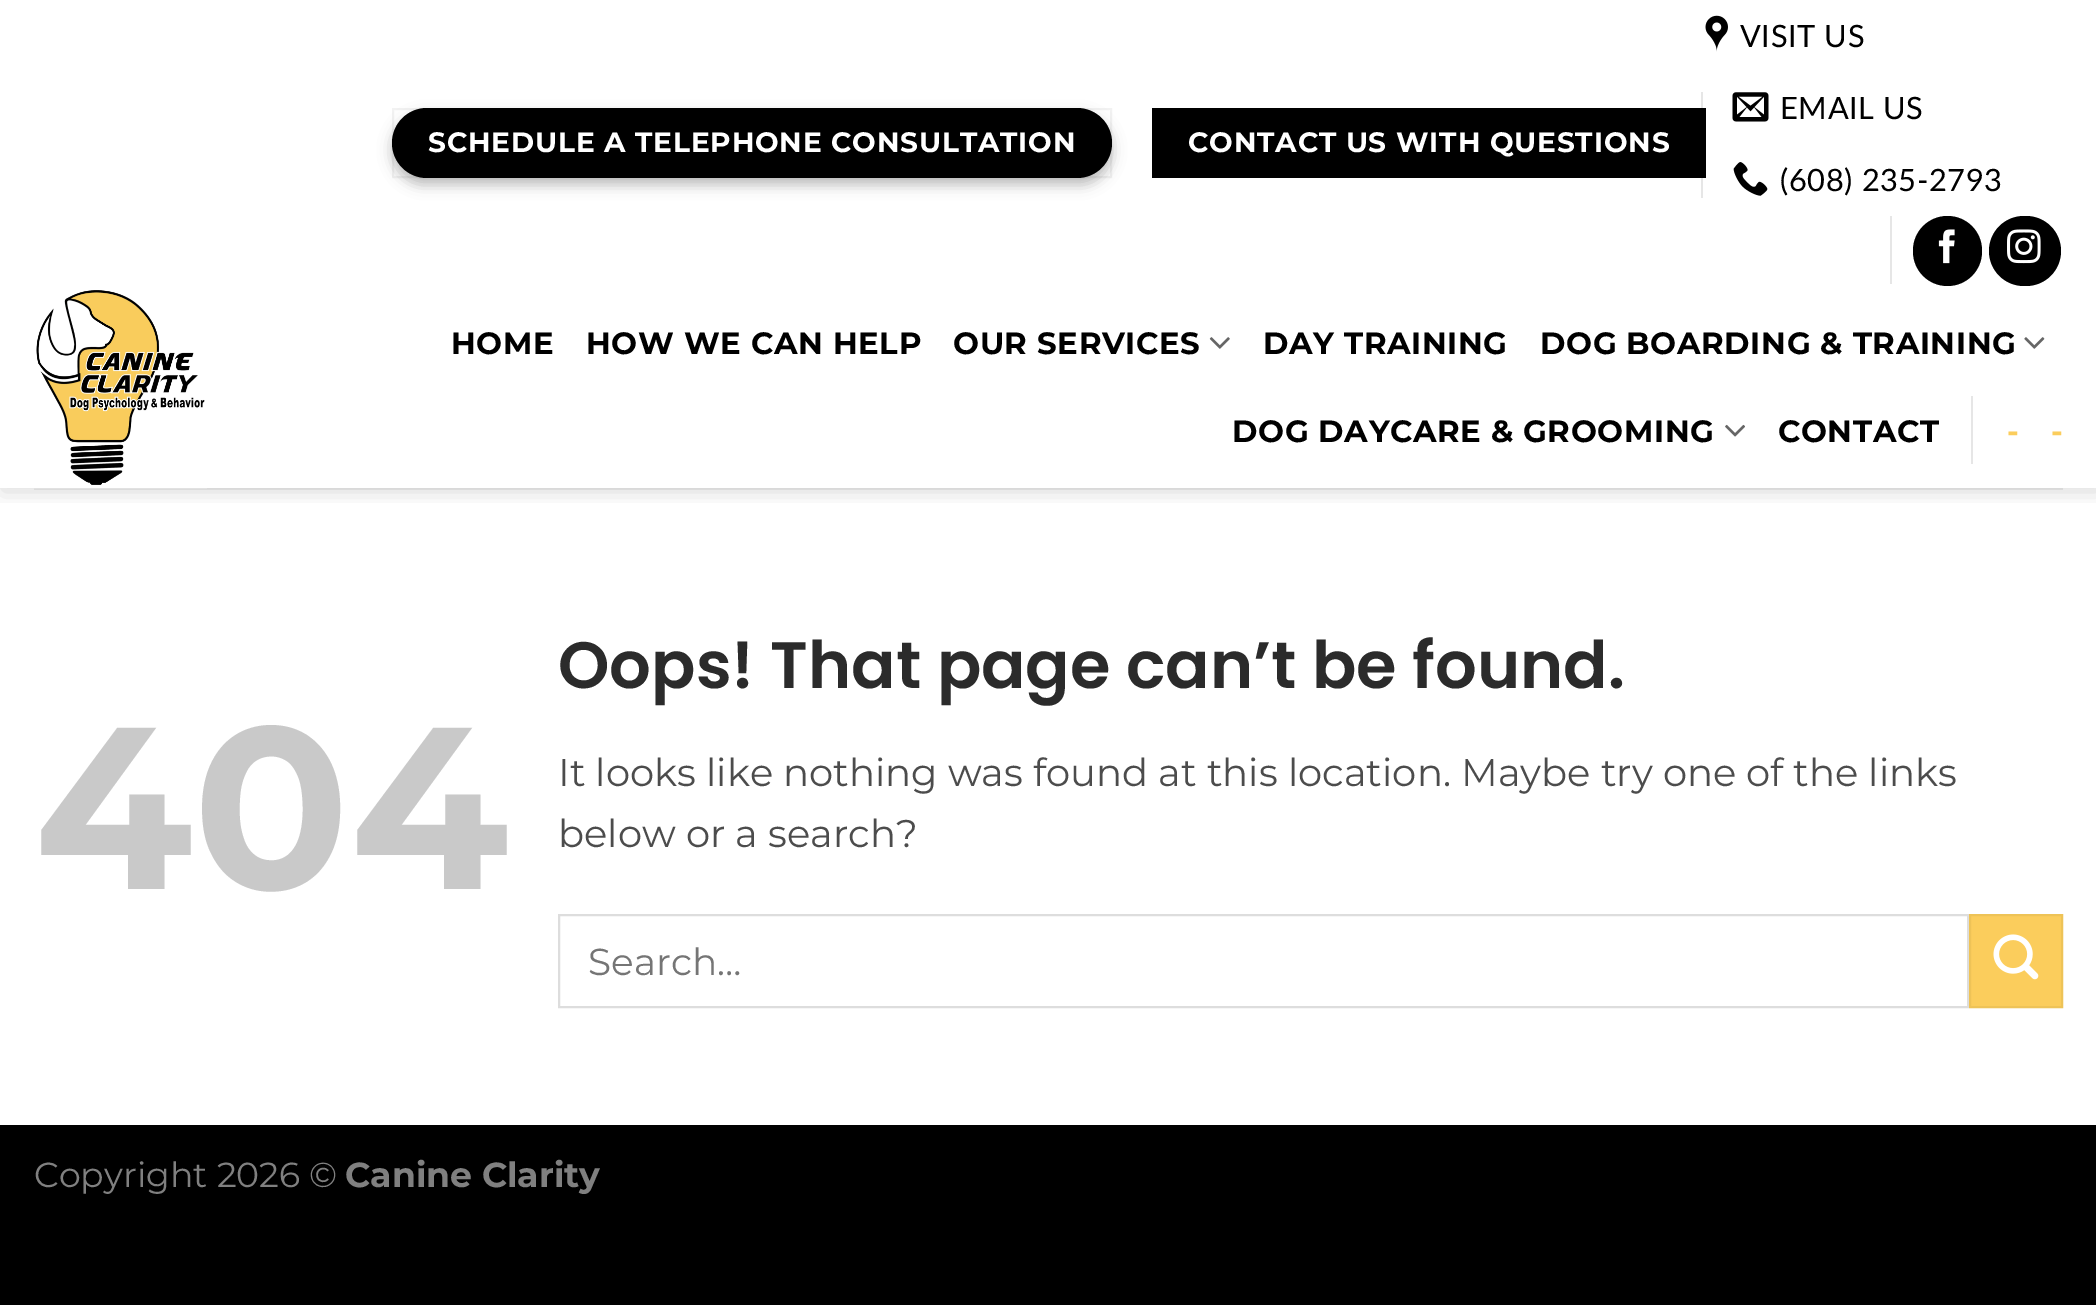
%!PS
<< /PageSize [2096 1305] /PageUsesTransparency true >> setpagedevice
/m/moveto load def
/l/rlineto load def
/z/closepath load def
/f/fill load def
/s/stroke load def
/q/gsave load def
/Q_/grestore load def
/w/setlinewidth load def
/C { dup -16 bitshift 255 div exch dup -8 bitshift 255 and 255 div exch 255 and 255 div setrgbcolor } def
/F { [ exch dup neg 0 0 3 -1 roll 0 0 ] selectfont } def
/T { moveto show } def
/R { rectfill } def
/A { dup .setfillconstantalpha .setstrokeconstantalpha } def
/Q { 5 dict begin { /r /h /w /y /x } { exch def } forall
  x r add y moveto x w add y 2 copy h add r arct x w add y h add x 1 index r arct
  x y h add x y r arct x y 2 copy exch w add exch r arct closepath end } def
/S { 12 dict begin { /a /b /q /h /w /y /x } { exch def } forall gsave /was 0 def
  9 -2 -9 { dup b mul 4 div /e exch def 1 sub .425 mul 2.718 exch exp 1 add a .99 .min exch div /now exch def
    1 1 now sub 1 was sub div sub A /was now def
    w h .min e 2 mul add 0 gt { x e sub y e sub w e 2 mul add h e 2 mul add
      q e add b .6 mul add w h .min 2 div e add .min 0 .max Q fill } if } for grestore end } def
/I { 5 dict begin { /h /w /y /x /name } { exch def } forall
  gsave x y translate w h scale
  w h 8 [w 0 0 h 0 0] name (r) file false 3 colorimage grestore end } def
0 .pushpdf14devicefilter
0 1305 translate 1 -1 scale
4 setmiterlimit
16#000000 C
0 0 2096 1305 R
16#FFFFFF C
0 0 2096 1125 R
16#E6E6E6 C
1701 178 2 20 R
1701 92 2 16 R
q
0 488 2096 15 rectclip
16#000000 C
2 2 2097 489 0 11 .15 S
Q_
16#000000 C
392 115 720 70 35 7 .23 S
401 124 702 52 26 7 .16 S
392 108 720 70 35 Q f
0.05 A
2 w
393 109 718 68 rectstroke
/Montserrat-Bold 28 F
1 A
16#FFFFFF C
428 152 m .85 0 (SCHEDULE A TELEPHONE CONSULTATION) ashow
16#000000 C
1152 108 554 70 R
16#FFFFFF C
1188 152 m .85 0 (CONTACT US WITH QUESTIONS) ashow
(1.rgb) 1705 15 23 37 I
/Lato-Regular 30.8 F
16#000000 C
1740 47 m .6 0 (VISIT US) ashow
(2.rgb) 1732 92 37 30 I
1780 119 m .6 0 (EMAIL US) ashow
(3.rgb) 1733 162 35 34 I
1780 191 m .6 0 (\(608\) 235-2793) ashow
16#E6E6E6 C
1890 216 2 68 R
16#000000 C
1913 216 69 70 34.5 Q f
(4.rgb) 1938 229 17 35 I
1989 216 72 70 35 Q f
(5.rgb) 2007 229 34 35 I
(6.rgb) 34 290 173 199 I
/Montserrat-Bold 30.8 F
451 354 m .6 0 (HOME) ashow
586 354 m .6 0 (HOW WE CAN HELP) ashow
953 354 m .6 0 (OUR SERVICES) ashow
(7.rgb) 1209 337 21 12 I
1263 354 m .6 0 (DAY TRAINING) ashow
1540 354 m .6 0 (DOG BOARDING & TRAINING) ashow
(8.rgb) 2024 337 21 12 I
1232 442 m .6 0 (DOG DAYCARE & GROOMING) ashow
(9.rgb) 1725 424 20 13 I
1778 442 m .6 0 (CONTACT) ashow
16#E6E6E6 C
1971 396 2 68 R
16#FBCD5C C
2007 442 m .6 0 (-) ashow
2051 442 m .6 0 (-) ashow
0.1 A
16#4C4C4C C
34 488 2029 2 R
/Montserrat-Bold 231 F
1 A
16#C9C9C9 C
(404) 34 889 T
/Poppins-SemiBold 65.5 F
16#2B2B2B C
(Oops! That page can’t be found.) 558 688 T
/Montserrat-Regular 38.5 F
16#4C4C4C C
(It looks like nothing was found at this location. Maybe try one of the links) 558 786 T
(below or a search?) 558 847 T
16#DDDDDD C
559 915 1409 92 rectstroke
/Montserrat-Regular 37.5 F
16#757575 C
(Search…) 588 975 T
16#FBCD5C C
1970 915 m 92 0 l 0 92 l -92 0 l z q f Q_
16#EEC357 C
s
(10.rgb) 1993 934 46 46 I
/Montserrat-Regular 34.75 F
16#808080 C
(Copyright 2026 ©) 34 1187 T
/Montserrat-Bold 34.75 F
(Canine Clarity) 345 1187 T
.poppdf14devicefilter showpage
